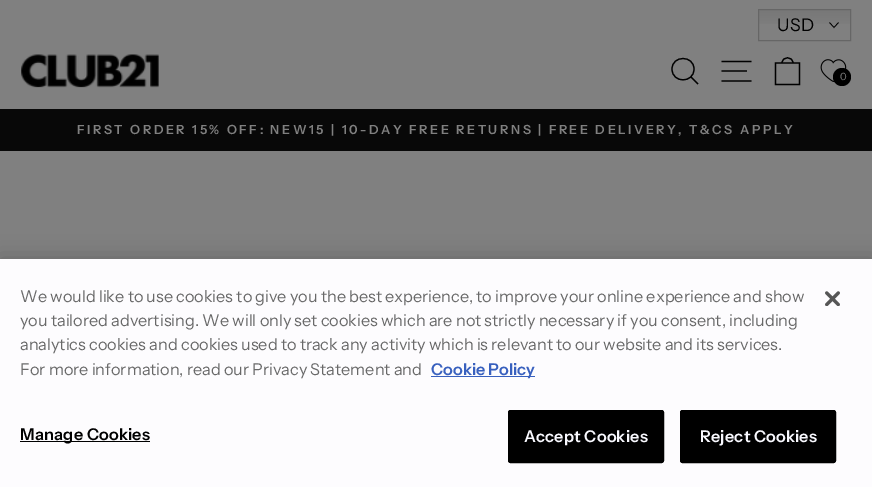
%!PS
<< /PageSize [872 487] /PageUsesTransparency true >> setpagedevice
/m/moveto load def
/l/rlineto load def
/c/rcurveto load def
/z/closepath load def
/f/fill load def
/s/stroke load def
/q/gsave load def
/Q_/grestore load def
/w/setlinewidth load def
/C { dup -16 bitshift 255 div exch dup -8 bitshift 255 and 255 div exch 255 and 255 div setrgbcolor } def
/F { [ exch dup neg 0 0 3 -1 roll 0 0 ] selectfont } def
/T { moveto show } def
/R { rectfill } def
/A { dup .setfillconstantalpha .setstrokeconstantalpha } def
/O { newpath 0 360 arc closepath } def
/Q { 5 dict begin { /r /h /w /y /x } { exch def } forall
  x r add y moveto x w add y 2 copy h add r arct x w add y h add x 1 index r arct
  x y h add x y r arct x y 2 copy exch w add exch r arct closepath end } def
/S { 12 dict begin { /a /b /q /h /w /y /x } { exch def } forall gsave /was 0 def
  9 -2 -9 { dup b mul 4 div /e exch def 1 sub .425 mul 2.718 exch exp 1 add a .99 .min exch div /now exch def
    1 1 now sub 1 was sub div sub A /was now def
    w h .min e 2 mul add 0 gt { x e sub y e sub w e 2 mul add h e 2 mul add
      q e add b .6 mul add w h .min 2 div e add .min 0 .max Q fill } if } for grestore end } def
/I { 5 dict begin { /h /w /y /x /name } { exch def } forall
  gsave x y translate w h scale
  w h 8 [w 0 0 h 0 0] name (r) file false 3 colorimage grestore end } def
0 .pushpdf14devicefilter
0 487 translate 1 -1 scale
4 setmiterlimit
16#808080 C
0 0 872 487 R
16#080808 C
0 109 872 42 R
16#000000 C
0 0 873 109 0 .5 .2 S
16#808080 C
0 0 872 109 R
q 759 10 m 91 0 l 0 14 l -91 0 l z clip newpath
<< /ShadingType 2 /ColorSpace /DeviceRGB /Coords [804 10 804 40] /Extend [true true] /Function << /FunctionType 3 /Domain [0 1] /Functions [<< /FunctionType 2 /Domain [0 1] /C0 [.471 .471 .471] /C1 [.502 .502 .502] /N 1 >> << /FunctionType 2 /Domain [0 1] /C0 [.502 .502 .502] /C1 [.502 .502 .502] /N 1 >>] /Bounds [.7] /Encode [0 1 0 1] >> >> shfill Q_
16#666666 C
758.5 9.5 92 31 rectstroke
/InstrumentSans-Regular 17.5 F
16#000000 C
777 31 m .5 0 (USD) ashow
.7 w
829.5 22.5 m 4.5 5 l 4.5 -5 l s
(1.rgb) 21 54 138 34 I
1.2 w
694 69 m 0 14.5 -22 14.5 -22 0 c 0 -14 22 -14 22 0 c z 698 84 m -7 -7 l s
721.5 61.5 m 30 0 l 721.5 71 m 25.5 0 l 721.5 81 m 30 0 l s
775.5 63 m 24 0 l 0 21.5 l -24 0 l z 782 63 m 0 -7 11 -7 11 0 c s
(2.rgb) 820 59 27 23 I
842 77 9 O f
/InstrumentSans-Regular 10 F
16#808080 C
(0) 840 80 T
/InstrumentSans-SemiBold 12.65 F
77 134 m 2.53 0 (FIRST ORDER 15% OFF: NEW15 | 10-DAY FREE RETURNS | FREE DELIVERY, T&CS APPLY) ashow
16#000000 C
0 259 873 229 0 11 .2 S
16#FDFCFE C
0 259 872 228 R
/InstrumentSans-Regular 16.25 F
16#696969 C
(We would like to use cookies to give you the best experience, to improve your online experience and show) 20 302 T
(you tailored advertising. We will only set cookies which are not strictly necessary if you consent, including) 20 326 T
(analytics cookies and cookies used to track any activity which is relevant to our website and its services.) 20 350 T
(For more information, read our Privacy Statement and) 20 375 T
16#3860BE C
431 376 104 1 R
/InstrumentSans-SemiBold 16.25 F
(Cookie Policy) 431 375 T
16#000000 C
20 441 130 1 R
20 440 m .2 0 (Manage Cookies) ashow
508.5 410.5 155 52 2 Q q f Q_
1 w
s
16#F9F9FF C
524 442 m .2 0 (Accept Cookies) ashow
16#000000 C
680.5 410.5 155 52 2 Q q f Q_
s
16#F9F9FF C
700 442 m .2 0 (Reject Cookies) ashow
(3.rgb) 825 291 15 15 I
.poppdf14devicefilter showpage
